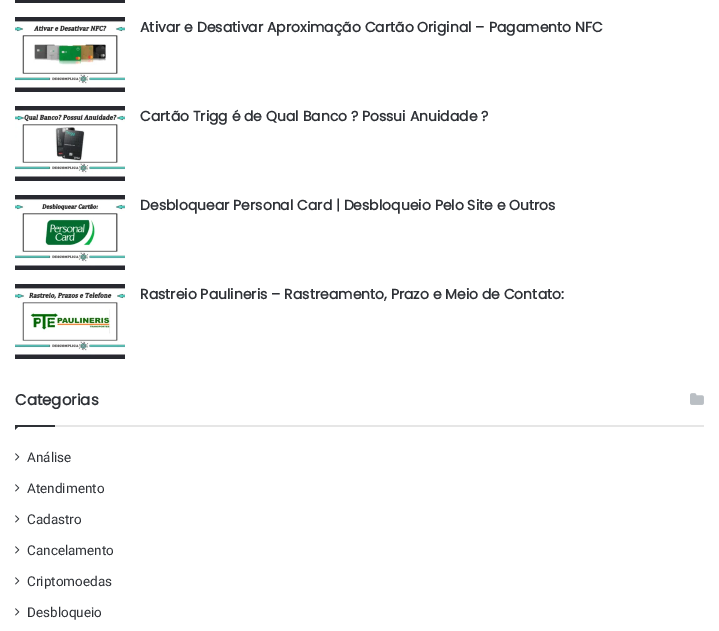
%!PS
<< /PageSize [719 631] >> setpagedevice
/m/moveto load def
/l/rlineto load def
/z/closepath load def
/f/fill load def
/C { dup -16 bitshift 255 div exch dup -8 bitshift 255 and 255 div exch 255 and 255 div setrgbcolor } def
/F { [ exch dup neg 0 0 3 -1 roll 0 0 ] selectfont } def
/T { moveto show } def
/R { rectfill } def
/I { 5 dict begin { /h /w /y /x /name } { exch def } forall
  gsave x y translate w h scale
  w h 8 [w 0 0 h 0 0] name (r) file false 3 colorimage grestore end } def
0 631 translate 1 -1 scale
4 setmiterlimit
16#FFFFFF C
0 0 719 631 R
(1.rgb) 15 0 110 3 I
(2.rgb) 15 17 110 75 I
/Poppins-Bold 14 F
16#2E3136 C
(Ativar e Desativar Aproximação Cartão Original – Pagamento NFC) 140 32 T
(3.rgb) 15 106 110 75 I
(Cartão Trigg é de Qual Banco ? Possui Anuidade ?) 140 121 T
(4.rgb) 15 195 110 75 I
(Desbloquear Personal Card | Desbloqueio Pelo Site e Outros) 140 210 T
(5.rgb) 15 284 110 75 I
(Rastreio Paulineris – Rastreamento, Prazo e Meio de Contato:) 140 299 T
16#E6E6E6 C
55 425 649 2 R
/Poppins-Bold 15 F
16#2E3136 C
(Categorias) 15 405 T
(6.rgb) 690 393 14 12 I
15 425 m 5 0 l -5 5 l z f
15 425 40 2 R
(7.rgb) 15 453 5 8 I
/Roboto-Regular 13.5 F
(Análise) 27 462 T
(7.rgb) 15 484 5 8 I
(Atendimento) 27 493 T
(7.rgb) 15 515 5 8 I
(Cadastro) 27 524 T
(7.rgb) 15 546 5 8 I
(Cancelamento) 27 555 T
(7.rgb) 15 577 5 8 I
(Criptomoedas) 27 586 T
(7.rgb) 15 608 5 8 I
(Desbloqueio) 27 617 T
showpage
